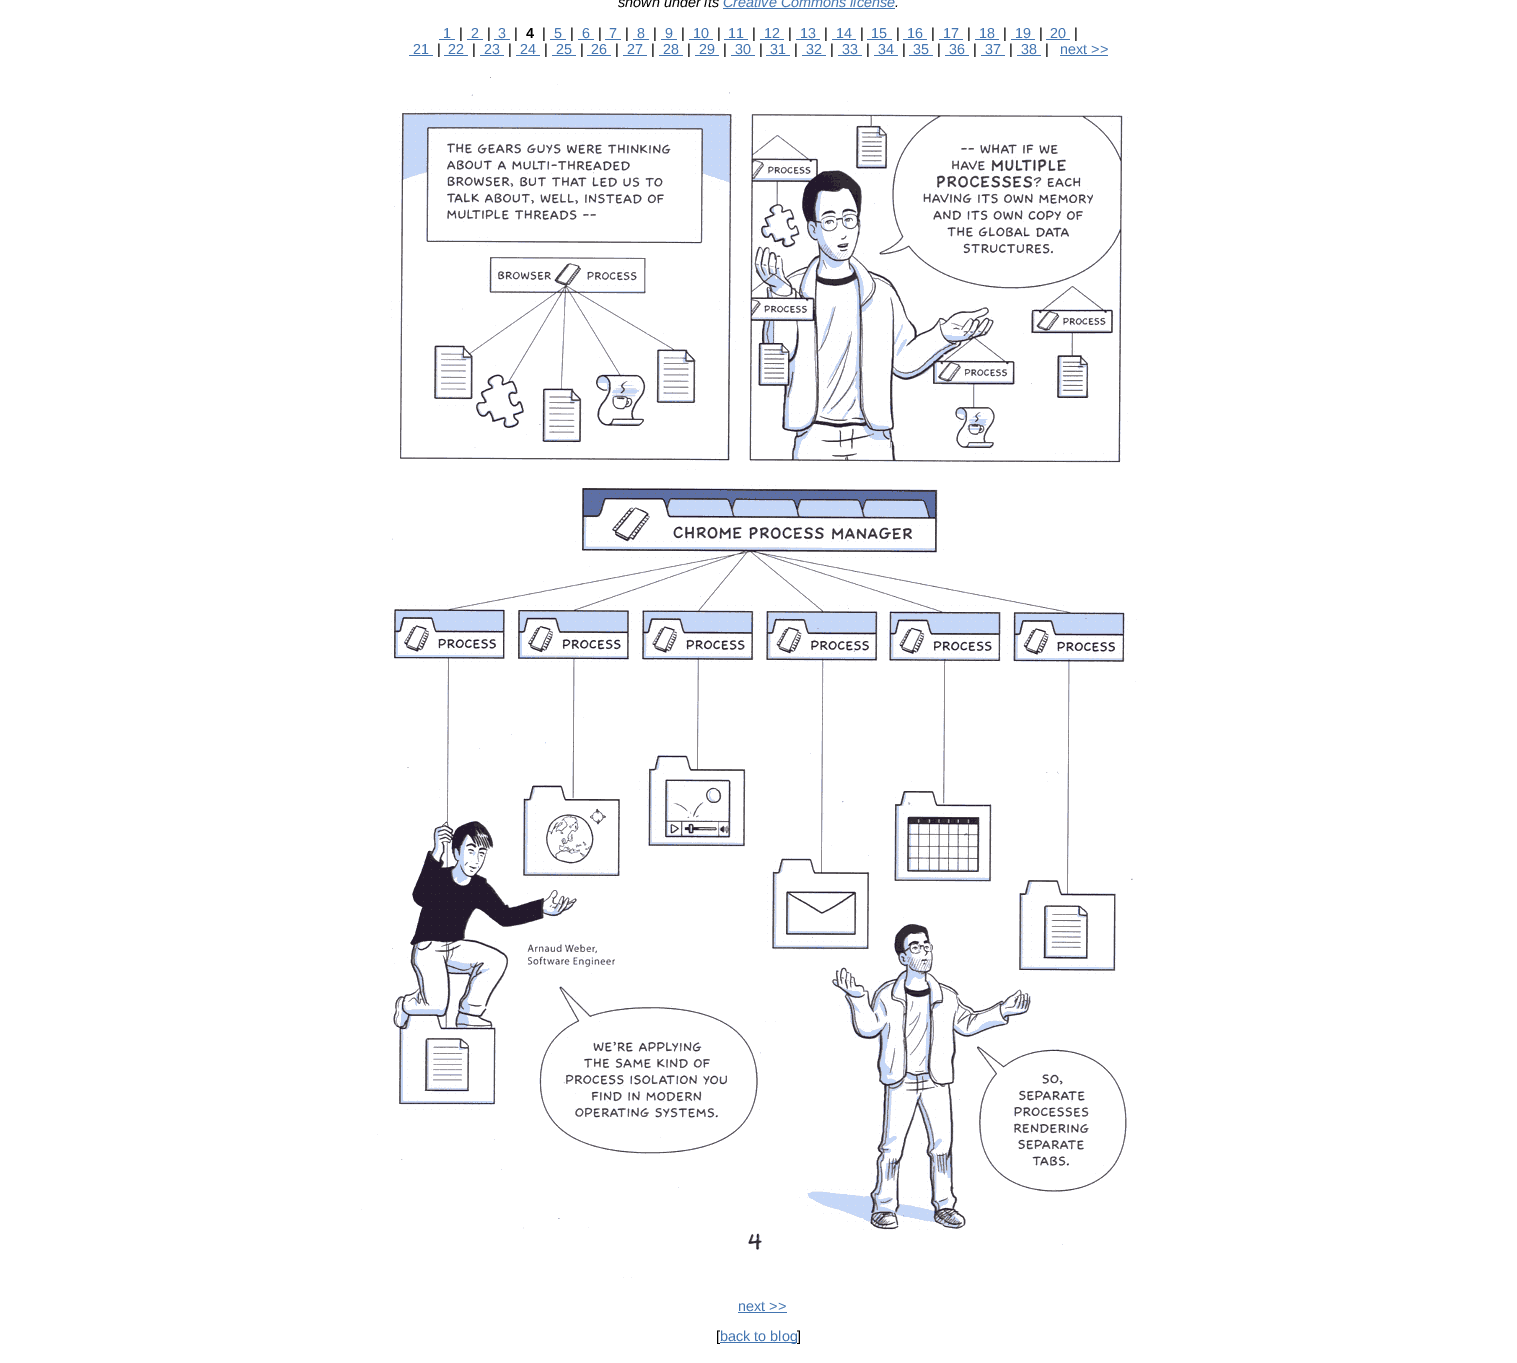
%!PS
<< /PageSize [1517 1363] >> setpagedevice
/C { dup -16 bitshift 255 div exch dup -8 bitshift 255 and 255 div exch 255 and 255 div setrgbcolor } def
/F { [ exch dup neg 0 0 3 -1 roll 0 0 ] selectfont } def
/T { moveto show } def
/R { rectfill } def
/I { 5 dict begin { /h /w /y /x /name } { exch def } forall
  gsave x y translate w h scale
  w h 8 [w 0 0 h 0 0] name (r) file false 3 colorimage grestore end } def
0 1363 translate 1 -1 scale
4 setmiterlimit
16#FFFFFF C
0 0 1517 1363 R
/LiberationSans-Italic 14.4 F
16#000000 C
(shown under its) 618 7 T
16#4375B1 C
(Creative Commons license) 723 7 T
723 8 172 1 R
16#000000 C
(.) 895 7 T
/LiberationSans-Regular 14.4 F
16#4375B1 C
(1) 443 38 T
439 39 16 1 R
16#000000 C
(|) 459 38 T
16#4375B1 C
(2) 471 38 T
467 39 16 1 R
16#000000 C
(|) 487 38 T
16#4375B1 C
(3) 498 38 T
494 39 16 1 R
16#000000 C
(|) 514 38 T
/LiberationSans-Bold 14.4 F
(4) 526 38 T
/LiberationSans-Regular 14.4 F
(|) 542 38 T
16#4375B1 C
(5) 554 38 T
550 39 16 1 R
16#000000 C
(|) 570 38 T
16#4375B1 C
(6) 582 38 T
578 39 16 1 R
16#000000 C
(|) 598 38 T
16#4375B1 C
(7) 609 38 T
605 39 16 1 R
16#000000 C
(|) 625 38 T
16#4375B1 C
(8) 637 38 T
633 39 16 1 R
16#000000 C
(|) 653 38 T
16#4375B1 C
(9) 665 38 T
661 39 16 1 R
16#000000 C
(|) 681 38 T
16#4375B1 C
(10) 693 38 T
689 39 24 1 R
16#000000 C
(|) 717 38 T
16#4375B1 C
(11) 728 38 T
724 39 24 1 R
16#000000 C
(|) 752 38 T
16#4375B1 C
(12) 764 38 T
760 39 24 1 R
16#000000 C
(|) 788 38 T
16#4375B1 C
(13) 800 38 T
796 39 24 1 R
16#000000 C
(|) 824 38 T
16#4375B1 C
(14) 836 38 T
832 39 24 1 R
16#000000 C
(|) 860 38 T
16#4375B1 C
(15) 871 38 T
867 39 25 1 R
16#000000 C
(|) 896 38 T
16#4375B1 C
(16) 907 38 T
903 39 24 1 R
16#000000 C
(|) 931 38 T
16#4375B1 C
(17) 943 38 T
939 39 24 1 R
16#000000 C
(|) 967 38 T
16#4375B1 C
(18) 979 38 T
975 39 24 1 R
16#000000 C
(|) 1003 38 T
16#4375B1 C
(19) 1015 38 T
1011 39 24 1 R
16#000000 C
(|) 1039 38 T
16#4375B1 C
(20) 1050 38 T
1046 39 24 1 R
16#000000 C
(|) 1074 38 T
16#4375B1 C
(21) 413 54 T
409 55 24 1 R
16#000000 C
(|) 437 54 T
16#4375B1 C
(22) 448 54 T
444 55 24 1 R
16#000000 C
(|) 472 54 T
16#4375B1 C
(23) 484 54 T
480 55 24 1 R
16#000000 C
(|) 508 54 T
16#4375B1 C
(24) 520 54 T
516 55 24 1 R
16#000000 C
(|) 544 54 T
16#4375B1 C
(25) 556 54 T
552 55 24 1 R
16#000000 C
(|) 580 54 T
16#4375B1 C
(26) 591 54 T
587 55 24 1 R
16#000000 C
(|) 615 54 T
16#4375B1 C
(27) 627 54 T
623 55 24 1 R
16#000000 C
(|) 651 54 T
16#4375B1 C
(28) 663 54 T
659 55 24 1 R
16#000000 C
(|) 687 54 T
16#4375B1 C
(29) 699 54 T
695 55 24 1 R
16#000000 C
(|) 723 54 T
16#4375B1 C
(30) 735 54 T
731 55 24 1 R
16#000000 C
(|) 759 54 T
16#4375B1 C
(31) 770 54 T
766 55 24 1 R
16#000000 C
(|) 794 54 T
16#4375B1 C
(32) 806 54 T
802 55 24 1 R
16#000000 C
(|) 830 54 T
16#4375B1 C
(33) 842 54 T
838 55 24 1 R
16#000000 C
(|) 866 54 T
16#4375B1 C
(34) 878 54 T
874 55 24 1 R
16#000000 C
(|) 902 54 T
16#4375B1 C
(35) 913 54 T
909 55 24 1 R
16#000000 C
(|) 937 54 T
16#4375B1 C
(36) 949 54 T
945 55 24 1 R
16#000000 C
(|) 973 54 T
16#4375B1 C
(37) 985 54 T
981 55 24 1 R
16#000000 C
(|) 1009 54 T
16#4375B1 C
(38) 1021 54 T
1017 55 24 1 R
16#000000 C
(|) 1045 54 T
16#4375B1 C
(next >>) 1060 54 T
1060 55 48 1 R
(1.rgb) 361 77 776 1201 I
(next >>) 738 1311 T
738 1312 49 1 R
16#000000 C
([) 716 1341 T
16#4375B1 C
720 1342 77 1 R
(back to blog) 720 1341 T
16#000000 C
(]) 797 1341 T
showpage
